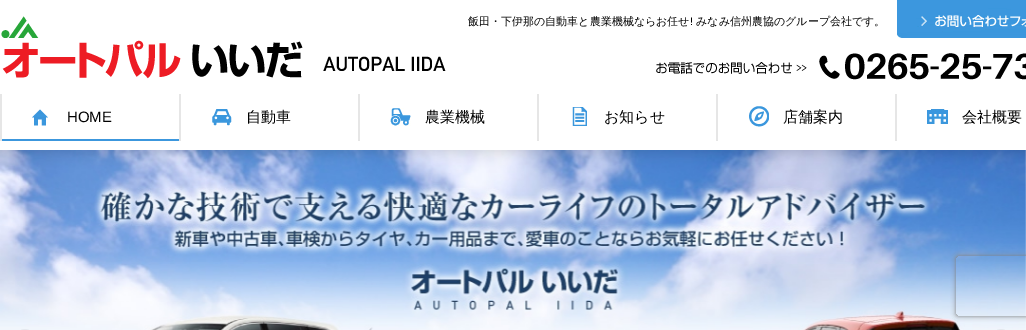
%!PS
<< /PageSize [1026 330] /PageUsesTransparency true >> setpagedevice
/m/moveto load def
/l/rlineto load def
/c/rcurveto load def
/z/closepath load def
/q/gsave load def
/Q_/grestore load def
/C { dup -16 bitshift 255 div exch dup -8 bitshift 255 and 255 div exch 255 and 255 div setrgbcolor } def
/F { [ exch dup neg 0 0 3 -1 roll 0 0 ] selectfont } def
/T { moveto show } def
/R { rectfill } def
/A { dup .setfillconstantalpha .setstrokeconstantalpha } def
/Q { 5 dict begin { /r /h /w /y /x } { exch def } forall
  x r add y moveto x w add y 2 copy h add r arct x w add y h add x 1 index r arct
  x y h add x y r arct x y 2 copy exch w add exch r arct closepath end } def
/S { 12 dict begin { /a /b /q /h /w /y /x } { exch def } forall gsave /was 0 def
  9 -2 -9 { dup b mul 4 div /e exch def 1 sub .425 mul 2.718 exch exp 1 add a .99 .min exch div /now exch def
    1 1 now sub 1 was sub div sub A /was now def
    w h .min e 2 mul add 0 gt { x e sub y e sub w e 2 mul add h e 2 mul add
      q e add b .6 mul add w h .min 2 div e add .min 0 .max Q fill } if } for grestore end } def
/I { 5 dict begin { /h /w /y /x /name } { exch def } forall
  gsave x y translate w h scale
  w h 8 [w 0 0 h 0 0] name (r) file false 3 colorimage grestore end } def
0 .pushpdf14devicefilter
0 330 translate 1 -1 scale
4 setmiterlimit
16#FFFFFF C
0 0 1026 330 R
(1.rgb) 897 0 129 38 I
(2.rgb) 656 53 370 27 I
(3.rgb) 1 16 445 63 I
/WenQuanYiZenHei-Medium 11 F
16#000000 C
(飯田・下伊那の自動車と農業機械ならお任せ) 468 25 T
/LiberationSans-Regular 11 F
(!) 690 25 T
/WenQuanYiZenHei-Medium 11 F
(みなみ信州農協のグループ会社です。) 696 25 T
16#E6E6E6 C
179 94 2 47 R
0 94 2 47 R
(4.rgb) 32 109 16 17 I
16#3C97DD C
2 139 177 2 R
/LiberationSans-Regular 15 F
16#000000 C
(HOME) 67 122 T
16#E6E6E6 C
358 94 2 47 R
(5.rgb) 212 109 20 17 I
/WenQuanYiZenHei-Medium 15 F
16#000000 C
(自動車) 246 122 T
16#E6E6E6 C
537 94 2 47 R
(6.rgb) 390 108 21 18 I
16#000000 C
(農業機械) 425 122 T
16#E6E6E6 C
716 94 2 47 R
(7.rgb) 572 107 15 19 I
16#000000 C
(お知らせ) 604 122 T
16#E6E6E6 C
895 94 2 47 R
(8.rgb) 749 106 20 21 I
16#000000 C
(店舗案内) 783 122 T
(9.rgb) 927 109 21 15 I
(会社概要) 962 122 T
(10.rgb) 1025 150 1 10 I
(11.rgb) 0 150 1026 180 I
(12.rgb) 21 329 8 1 I
(13.rgb) 997 329 8 1 I
q
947 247 m 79 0 l 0 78 l -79 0 l z 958 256 m 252 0 l 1 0 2 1 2 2 c 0 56 l 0 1 -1 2 -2 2 c -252 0 l -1 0 -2 -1 -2 -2 c 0 -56 l 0 -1 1 -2 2 -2 c z eoclip newpath
16#808080 C
956 256 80 60 2 2.5 1 S
Q_
.poppdf14devicefilter showpage
